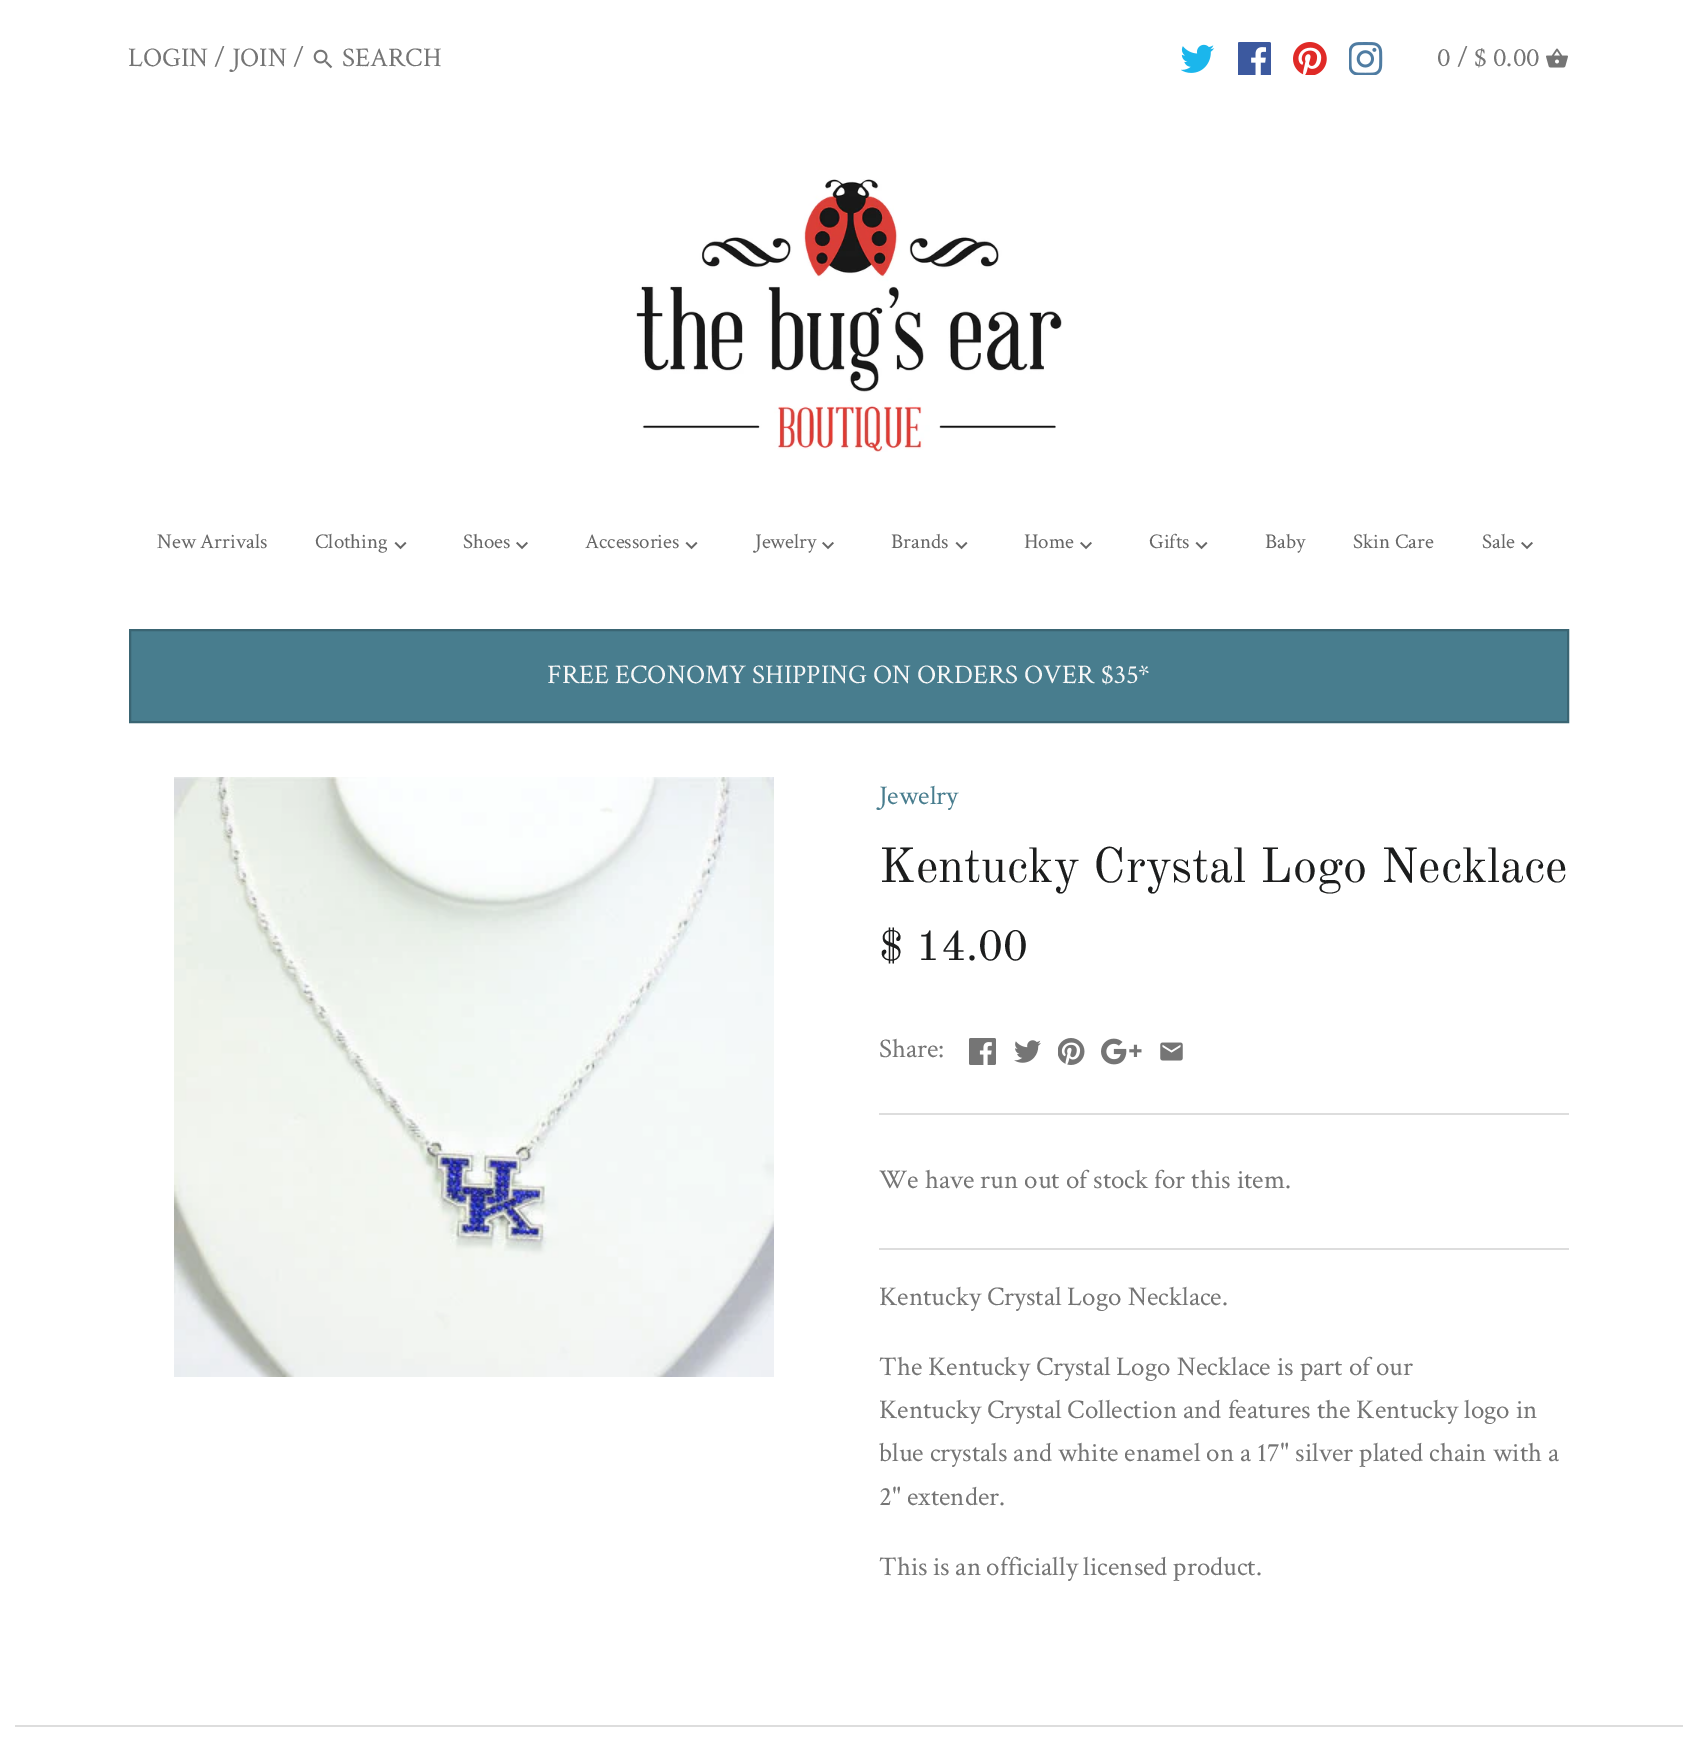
%!PS
<< /PageSize [1698 1758] >> setpagedevice
/m/moveto load def
/l/rlineto load def
/z/closepath load def
/f/fill load def
/s/stroke load def
/q/gsave load def
/Q_/grestore load def
/w/setlinewidth load def
/C { dup -16 bitshift 255 div exch dup -8 bitshift 255 and 255 div exch 255 and 255 div setrgbcolor } def
/F { [ exch dup neg 0 0 3 -1 roll 0 0 ] selectfont } def
/T { moveto show } def
/R { rectfill } def
/I { 5 dict begin { /h /w /y /x /name } { exch def } forall
  gsave x y translate w h scale
  w h 8 [w 0 0 h 0 0] name (r) file false 3 colorimage grestore end } def
0 1758 translate 1 -1 scale
4 setmiterlimit
16#FFFFFF C
0 0 1698 1758 R
/CrimsonText-Regular 27 F
16#757575 C
(LOGIN / JOIN /) 128 66 T
(1.rgb) 313 49 20 20 I
(SEARCH) 342 66 T
(2.rgb) 1181 44 34 29 I
(3.rgb) 1238 42 33 33 I
(4.rgb) 1293 42 34 33 I
(5.rgb) 1349 42 34 33 I
(0 / $ 0.00) 1437 66 T
(6.rgb) 1546 48 22 20 I
(7.rgb) 636 179 426 273 I
/CrimsonText-Regular 21 F
16#666666 C
(New Arrivals) 157 548 T
(Clothing) 315 548 T
(8.rgb) 394 542 13 8 I
(Shoes) 463 548 T
(9.rgb) 516 542 12 8 I
(Accessories) 585 548 T
(8.rgb) 685 542 13 8 I
(Jewelry) 755 548 T
(9.rgb) 822 542 12 8 I
(Brands) 891 548 T
(8.rgb) 955 542 13 8 I
(Home) 1024 548 T
(9.rgb) 1080 542 12 8 I
(Gifts) 1149 548 T
(8.rgb) 1195 542 13 8 I
(Baby) 1265 548 T
(Skin Care) 1353 548 T
(Sale) 1482 548 T
(9.rgb) 1521 542 12 8 I
16#487D8E C
130 630 m 1438 0 l 0 92 l -1438 0 l z q f Q_
16#3A6573 C
2 w
s
/CrimsonText-Regular 27 F
16#F7F7F7 C
(FREE ECONOMY SHIPPING ON ORDERS OVER $35*) 547 683 T
(10.rgb) 174 777 600 600 I
16#DDDDDD C
879 1113 690 2 R
16#487D8E C
(Jewelry) 879 804 T
/OldStandardTT-Regular 48.6 F
16#1C1D1D C
(Kentucky Crystal Logo Necklace) 879 882 T
/OldStandardTT-Regular 43 F
($ 14.00) 879 960 T
/CrimsonText-Regular 27 F
16#757575 C
(Share:) 879 1057 T
(11.rgb) 969 1038 27 27 I
(12.rgb) 1014 1040 27 23 I
(13.rgb) 1058 1038 27 27 I
(14.rgb) 1101 1038 41 27 I
(15.rgb) 1160 1042 23 19 I
16#DDDDDD C
879 1248 690 2 R
16#757575 C
(We have run out of stock for this item.) 879 1188 T
(Kentucky Crystal Logo Necklace.) 879 1305 T
(The Kentucky Crystal Logo Necklace is part of our) 879 1375 T
(Kentucky Crystal Collection and features the Kentucky logo in) 879 1418 T
(blue crystals and white enamel on a 17" silver plated chain with a) 879 1461 T
(2" extender.) 879 1505 T
879 1575 m -.5 0 32 (This is an officially licensed product.) widthshow
16#DDDDDD C
15 1725 1668 2 R
showpage
